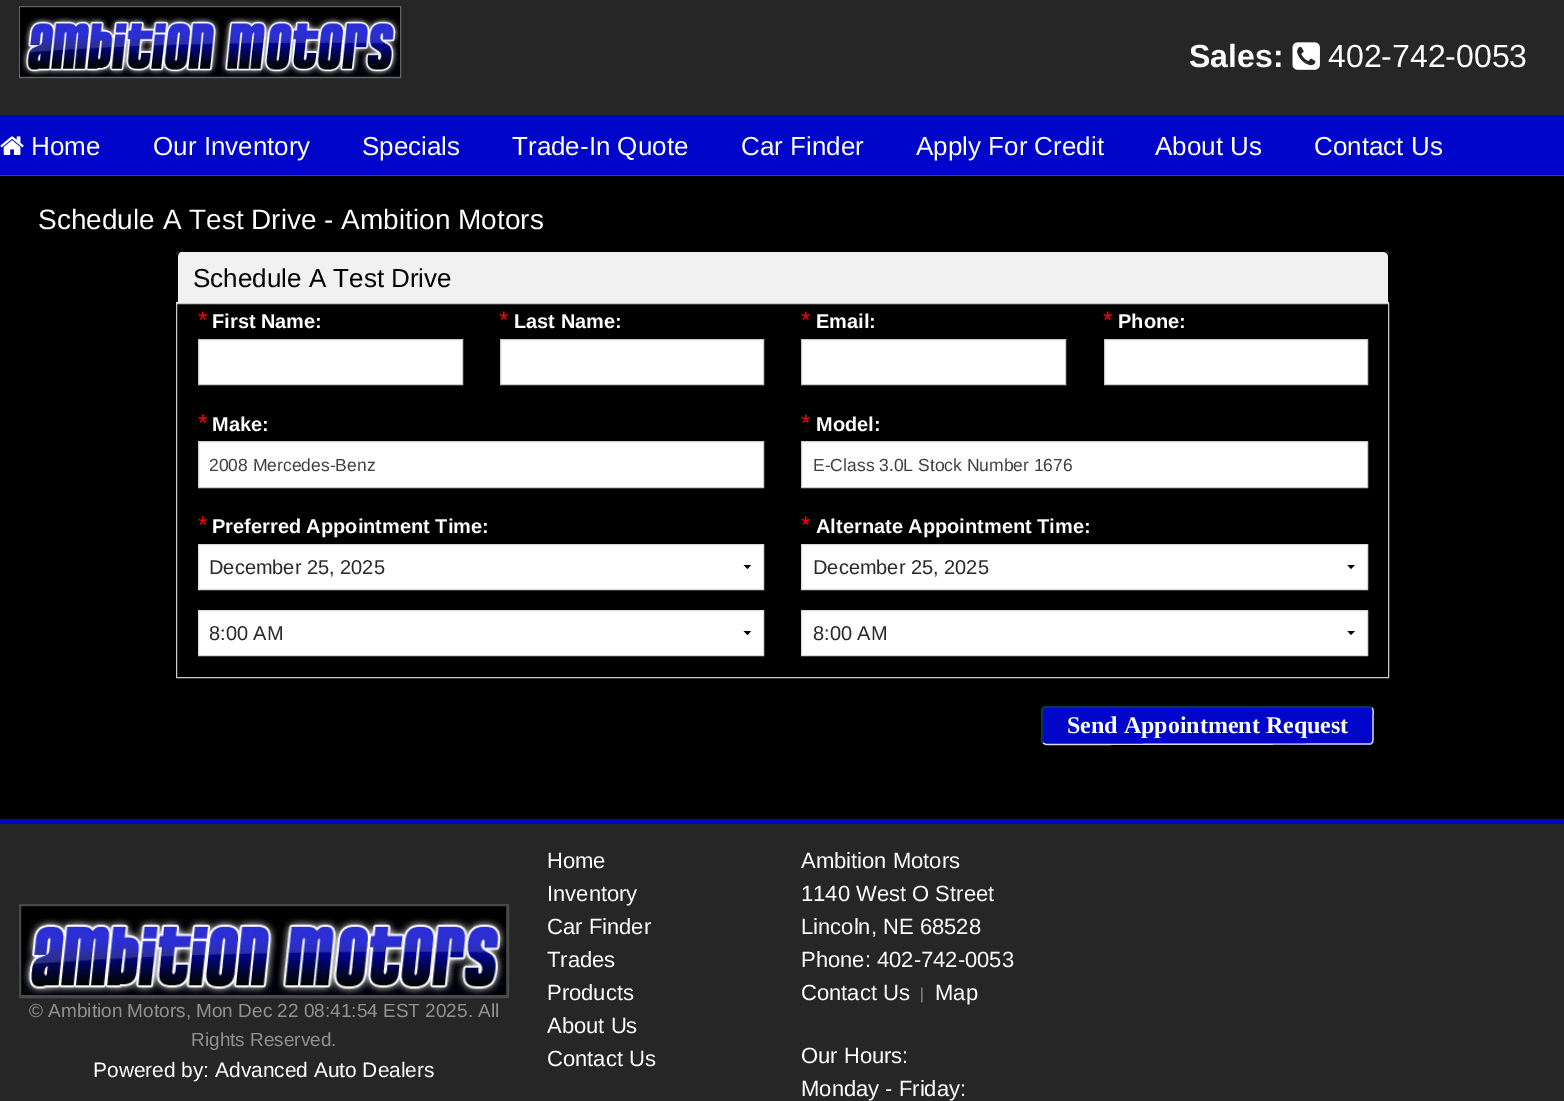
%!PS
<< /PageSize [1564 1101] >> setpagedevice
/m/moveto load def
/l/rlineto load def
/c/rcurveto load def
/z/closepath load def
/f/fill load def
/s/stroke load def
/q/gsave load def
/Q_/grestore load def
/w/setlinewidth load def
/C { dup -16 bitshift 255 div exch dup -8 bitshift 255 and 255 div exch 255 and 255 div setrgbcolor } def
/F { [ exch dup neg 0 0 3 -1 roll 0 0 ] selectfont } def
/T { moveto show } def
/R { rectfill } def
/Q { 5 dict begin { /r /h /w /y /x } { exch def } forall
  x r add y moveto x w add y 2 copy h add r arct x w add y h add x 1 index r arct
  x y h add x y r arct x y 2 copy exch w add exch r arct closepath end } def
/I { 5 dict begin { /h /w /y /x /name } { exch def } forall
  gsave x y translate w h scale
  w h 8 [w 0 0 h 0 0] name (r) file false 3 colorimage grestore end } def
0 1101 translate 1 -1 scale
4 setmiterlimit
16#000000 C
0 0 1564 1101 R
16#262626 C
0 0 1564 115 R
16#646464 C
19.5 6.5 381 71 rectstroke
(1.rgb) 20 7 380 70 I
/Arimo-Bold 32 F
16#FFFFFF C
(Sales:) 1189 67 T
(2.rgb) 1292 42 28 28 I
/Arimo-Regular 32 F
(402-742-0053) 1328 67 T
16#0005CA C
0 115 1564 60 R
16#494949 C
0 175 1564 1 R
(3.rgb) 0 136 24 19 I
/Arimo-Regular 26 F
16#FFFFFF C
(Home) 31 155 T
(Our Inventory) 153 155 T
(Specials) 362 155 T
(Trade-In Quote) 512 155 T
(Car Finder) 741 155 T
(Apply For Credit) 916 155 T
(About Us) 1155 155 T
(Contact Us) 1314 155 T
/Arimo-Regular 28 F
(Schedule A Test Drive - Ambition Motors) 38 229 T
16#F1F1F1 C
181 251 m 1203 0 l 3 0 5 2 5 5 c 0 47 l -1213 0 l 0 -47 l 0 -3 2 -5 5 -5 c z f
16#000000 C
181 251 m 1203 0 l 3 0 5 2 5 5 c 0 46 l -1213 0 l 0 -46 l 0 -3 2 -5 5 -5 c z 181 252 m 1203 0 l 2 0 4 2 4 4 c 0 46 l -1210 0 l 0 -46 l 0 -2 1 -4 3 -4 c z eofill
/Arimo-Regular 26 F
(Schedule A Test Drive) 193 287 T
16#C9C9C9 C
176.5 303.5 1212 374 rectstroke
/Arimo-Regular 24 F
16#FF0000 C
(*) 198 328 T
/Arimo-Bold 20 F
16#FFFFFF C
(First Name:) 212 328 T
198.5 339.5 m 264 0 l 0 45 l -264 0 l z q f Q_
16#CCCCCC C
s
/Arimo-Regular 24 F
16#FF0000 C
(*) 499 328 T
/Arimo-Bold 20 F
16#FFFFFF C
(Last Name:) 514 328 T
500.5 339.5 m 263 0 l 0 45 l -263 0 l z q f Q_
16#CCCCCC C
s
/Arimo-Regular 24 F
16#FF0000 C
(*) 801 328 T
/Arimo-Bold 20 F
16#FFFFFF C
(Email:) 816 328 T
801.5 339.5 m 264 0 l 0 45 l -264 0 l z q f Q_
16#CCCCCC C
s
/Arimo-Regular 24 F
16#FF0000 C
(*) 1103 328 T
/Arimo-Bold 20 F
16#FFFFFF C
(Phone:) 1118 328 T
1104.5 339.5 m 263 0 l 0 45 l -263 0 l z q f Q_
16#CCCCCC C
s
/Arimo-Regular 24 F
16#FF0000 C
(*) 198 431 T
/Arimo-Bold 20 F
16#FFFFFF C
(Make:) 212 431 T
198.5 441.5 m 565 0 l 0 46 l -565 0 l z q f Q_
16#CCCCCC C
s
/Arimo-Regular 17.5 F
16#404040 C
(2008 Mercedes-Benz) 209 471 T
/Arimo-Regular 24 F
16#FF0000 C
(*) 801 431 T
/Arimo-Bold 20 F
16#FFFFFF C
(Model:) 816 431 T
801.5 441.5 m 566 0 l 0 46 l -566 0 l z q f Q_
16#CCCCCC C
s
/Arimo-Regular 17.5 F
16#404040 C
(E-Class 3.0L Stock Number 1676) 813 471 T
/Arimo-Regular 24 F
16#FF0000 C
(*) 198 533 T
/Arimo-Bold 20 F
16#FFFFFF C
(Preferred Appointment Time:) 212 533 T
199 545 564 44 R
16#000000 C
751 565 m -3.5 4 l -4 -4 l z f
16#DADADA C
198.5 544.5 565 45 rectstroke
/Arimo-Regular 20 F
16#292929 C
(December 25, 2025) 209 574 T
16#FFFFFF C
199 611 564 44 R
16#000000 C
751 631 m -3.5 4 l -4 -4 l z f
16#DADADA C
198.5 610.5 565 45 rectstroke
16#292929 C
(8:00 AM) 209 640 T
/Arimo-Regular 24 F
16#FF0000 C
(*) 801 533 T
/Arimo-Bold 20 F
16#FFFFFF C
(Alternate Appointment Time:) 816 533 T
802 545 565 44 R
16#000000 C
1355 565 m -4 4 l -3.5 -4 l z f
16#DADADA C
801.5 544.5 566 45 rectstroke
/Arimo-Regular 20 F
16#292929 C
(December 25, 2025) 813 574 T
16#FFFFFF C
802 611 565 44 R
16#000000 C
1355 631 m -4 4 l -3.5 -4 l z f
16#DADADA C
801.5 610.5 566 45 rectstroke
16#292929 C
(8:00 AM) 813 640 T
16#0005CA C
1041 706 333 39 5 Q f
16#DADADA C
1.2 w
1372 708 m 2 2 1 5.5 1 8 c 0 19 l 0 3 1 7.5 -2.5 9 c -324.5 .5 l -3 -1.5 l s
16#024E2B C
1043 743 m -2 -2 -1 -5.5 -1 -8 c 0 -19 l 0 -3 -1 -7.5 2.5 -9 c 324.5 0 l 3 1 l s
/LiberationSerif-Bold 24 F
16#FFFFFF C
(Send Appointment Request) 1067 733 T
16#0005CA C
0 819 1564 5 R
16#262626 C
0 824 1564 277 R
16#494949 C
3 w
20.5 905.5 487 91 rectstroke
(4.rgb) 21 906 486 89 I
/Arimo-Regular 19 F
16#919191 C
(© Ambition Motors, Mon Dec 22 08:41:54 EST 2025. All) 29 1017 T
(Rights Reserved.) 191 1046 T
/Arimo-Regular 20.9 F
16#FFFFFF C
(Powered by: Advanced Auto Dealers) 93 1077 T
/Arimo-Regular 22 F
(Home) 547 868 T
(Inventory) 547 901 T
(Car Finder) 547 934 T
(Trades) 547 967 T
(Products) 547 1000 T
(About Us) 547 1033 T
(Contact Us) 547 1066 T
(Ambition Motors) 801 868 T
(1140 West O Street) 801 901 T
(Lincoln, NE 68528) 801 934 T
(Phone: 402-742-0053) 801 967 T
(Contact Us) 801 1000 T
(5.rgb) 921 987 2 16 I
(Map) 935 1000 T
(Our Hours:) 801 1063 T
(Monday - Friday:) 801 1096 T
showpage
